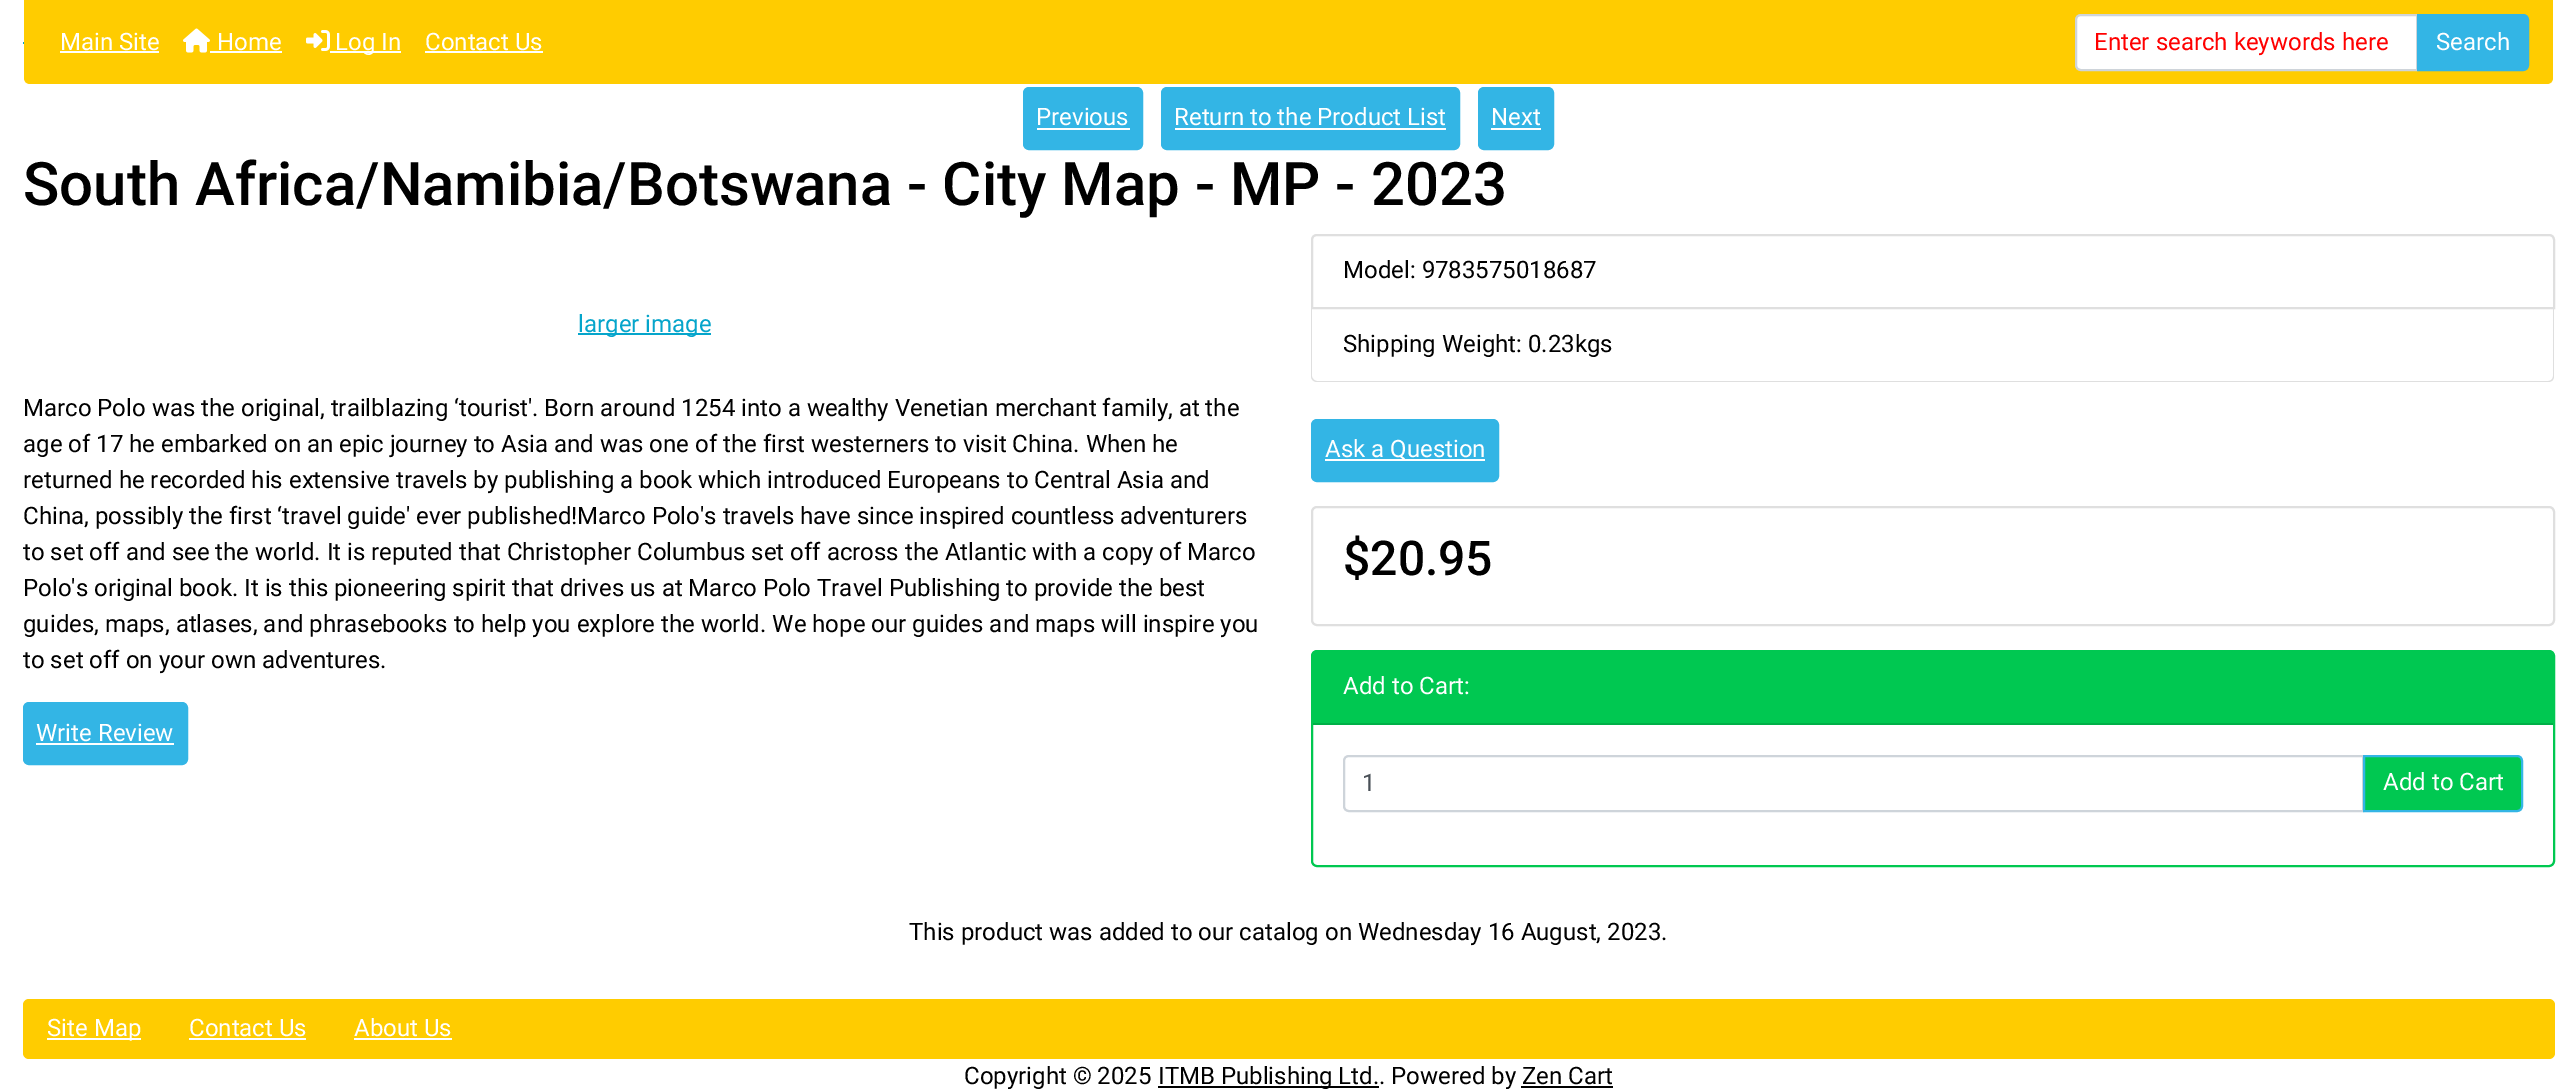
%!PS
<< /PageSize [2576 1089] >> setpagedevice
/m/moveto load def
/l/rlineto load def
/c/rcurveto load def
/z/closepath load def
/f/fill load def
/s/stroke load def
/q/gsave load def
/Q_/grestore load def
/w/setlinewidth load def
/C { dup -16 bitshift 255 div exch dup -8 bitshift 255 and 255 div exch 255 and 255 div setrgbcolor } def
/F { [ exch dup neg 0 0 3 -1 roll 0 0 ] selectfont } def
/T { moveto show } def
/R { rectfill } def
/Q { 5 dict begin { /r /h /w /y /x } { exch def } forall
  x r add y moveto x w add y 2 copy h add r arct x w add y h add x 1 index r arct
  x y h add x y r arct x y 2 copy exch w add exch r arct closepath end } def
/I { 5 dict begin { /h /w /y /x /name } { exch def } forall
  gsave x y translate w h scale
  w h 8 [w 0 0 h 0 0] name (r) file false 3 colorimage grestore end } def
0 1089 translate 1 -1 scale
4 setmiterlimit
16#FFFFFF C
0 0 2576 1089 R
16#FFCC00 C
24 0 m 2529 0 l 0 78 l 0 3.5 -2.5 6 -6 6 c -2517 0 l -3.5 0 -6 -2.5 -6 -6 c z f
/Roboto-Regular 24 F
16#FFFFFF C
(Main Site) 60 50 T
60 51 99 2 R
(1.rgb) 183 28 27 25 I
(Home) 217 50 T
210 51 72 2 R
(2.rgb) 306 30 24 21 I
330 51 71 2 R
(Log In) 335 50 T
(Contact Us) 425 50 T
425 51 118 2 R
2081 15 m 336 0 l 0 55 l -336 0 l -3 0 -5 -2 -5 -5 c 0 -45 l 0 -3 2 -5 5 -5 c z q f Q_
16#CED4DA C
2 w
s
16#FF0000 C
(Enter search keywords here) 2094 50 T
16#33B5E5 C
2418 15 m 105 0 l 3 0 5 2 5 5 c 0 45 l 0 3 -2 5 -5 5 c -105 0 l z q f Q_
s
16#FFFFFF C
(Search) 2436 50 T
16#05A5CB C
23 42 1 2 R
16#33B5E5 C
1024 88 118 61 5 Q q f Q_
s
16#FFFFFF C
(Previous) 1036 125 T
1037 128 93 2 R
16#33B5E5 C
1162 88 297 61 5 Q q f Q_
s
16#FFFFFF C
(Return to the Product List) 1174 125 T
1175 128 271 2 R
16#33B5E5 C
1479 88 74 61 5 Q q f Q_
s
16#FFFFFF C
(Next) 1491 125 T
1491 128 50 2 R
/Roboto-Medium 60 F
16#000000 C
(South Africa/Namibia/Botswana - City Map - MP - 2023) 23 205 T
16#05A5CB C
578 333 133 2 R
/Roboto-Regular 24 F
(larger image) 578 332 T
16#000000 C
(Marco Polo was the original, trailblazing ‘tourist'. Born around 1254 into a wealthy Venetian merchant family, at the) 23 416 T
(age of 17 he embarked on an epic journey to Asia and was one of the first westerners to visit China. When he) 23 452 T
(returned he recorded his extensive travels by publishing a book which introduced Europeans to Central Asia and) 23 488 T
(China, possibly the first ‘travel guide' ever published!Marco Polo's travels have since inspired countless adventurers) 23 524 T
(to set off and see the world. It is reputed that Christopher Columbus set off across the Atlantic with a copy of Marco) 23 560 T
(Polo's original book. It is this pioneering spirit that drives us at Marco Polo Travel Publishing to provide the best) 23 596 T
(guides, maps, atlases, and phrasebooks to help you explore the world. We hope our guides and maps will inspire you) 23 632 T
(to set off on your own adventures.) 23 668 T
16#33B5E5 C
24 703 163 61 5 Q q f Q_
s
16#FFFFFF C
(Write Review) 36 741 T
36 743 138 2 R
16#DFDFDF C
1317 235 m 1232 0 l 3 0 5 2 5 5 c 0 68 l -1242 0 l 0 -68 l 0 -3 2 -5 5 -5 c z s
16#000000 C
(Model: 9783575018687) 1343 278 T
16#DFDFDF C
1311 309 m 1243 0 l 0 67 l 0 4 -2 6 -6 6 c -1231 0 l -3 0 -6 -2 -6 -6 c z 1312 309 m 1241 0 l 0 67 l 0 3 -2 5 -5 5 c -1231 0 l -2 0 -5 -2 -5 -5 c z eofill
16#000000 C
(Shipping Weight: 0.23kgs) 1343 352 T
16#33B5E5 C
1312 420 186 61 5 Q q f Q_
s
16#FFFFFF C
1325 459 160 2 R
(Ask a Question) 1325 457 T
16#DFDFDF C
1312 507 1242 118 5 Q s
/Roboto-Medium 48 F
16#000000 C
($20.95) 1343 575 T
16#00C851 C
1312 651 1242 215 5 Q s
1318 651 m 1230 0 l 3 0 5 2 5 5 c 0 69 l -1240 0 l 0 -69 l 0 -3 2 -5 5 -5 c z f
16#00AF47 C
1313 723 1240 2 R
/Roboto-Regular 24 F
16#FFFFFF C
(Add to Cart:) 1343 694 T
16#CED4DA C
1349 756 m 1014 0 l 0 55 l -1014 0 l -3 0 -5 -2 -5 -5 c 0 -45 l 0 -3 2 -5 5 -5 c z s
16#495057 C
(1) 1362 791 T
16#00C851 C
2364 756 m 153 0 l 3 0 5 2 5 5 c 0 45 l 0 3 -2 5 -5 5 c -153 0 l z q f Q_
16#33B5E5 C
s
16#FFFFFF C
(Add to Cart) 2383 790 T
16#000000 C
(This product was added to our catalog on Wednesday 16 August, 2023.) 909 940 T
16#FFCC00 C
23 999 2532 60 6 Q f
16#FFFFFF C
47 1038 94 2 R
(Site Map) 47 1036 T
(Contact Us) 189 1036 T
189 1038 117 2 R
(About Us) 354 1036 T
354 1038 98 2 R
16#000000 C
(Copyright © 2025) 964 1084 T
1158 1086 221 2 R
(ITMB Publishing Ltd.. Powered by Zen Cart) 1158 1084 T
1521 1086 92 2 R
showpage
